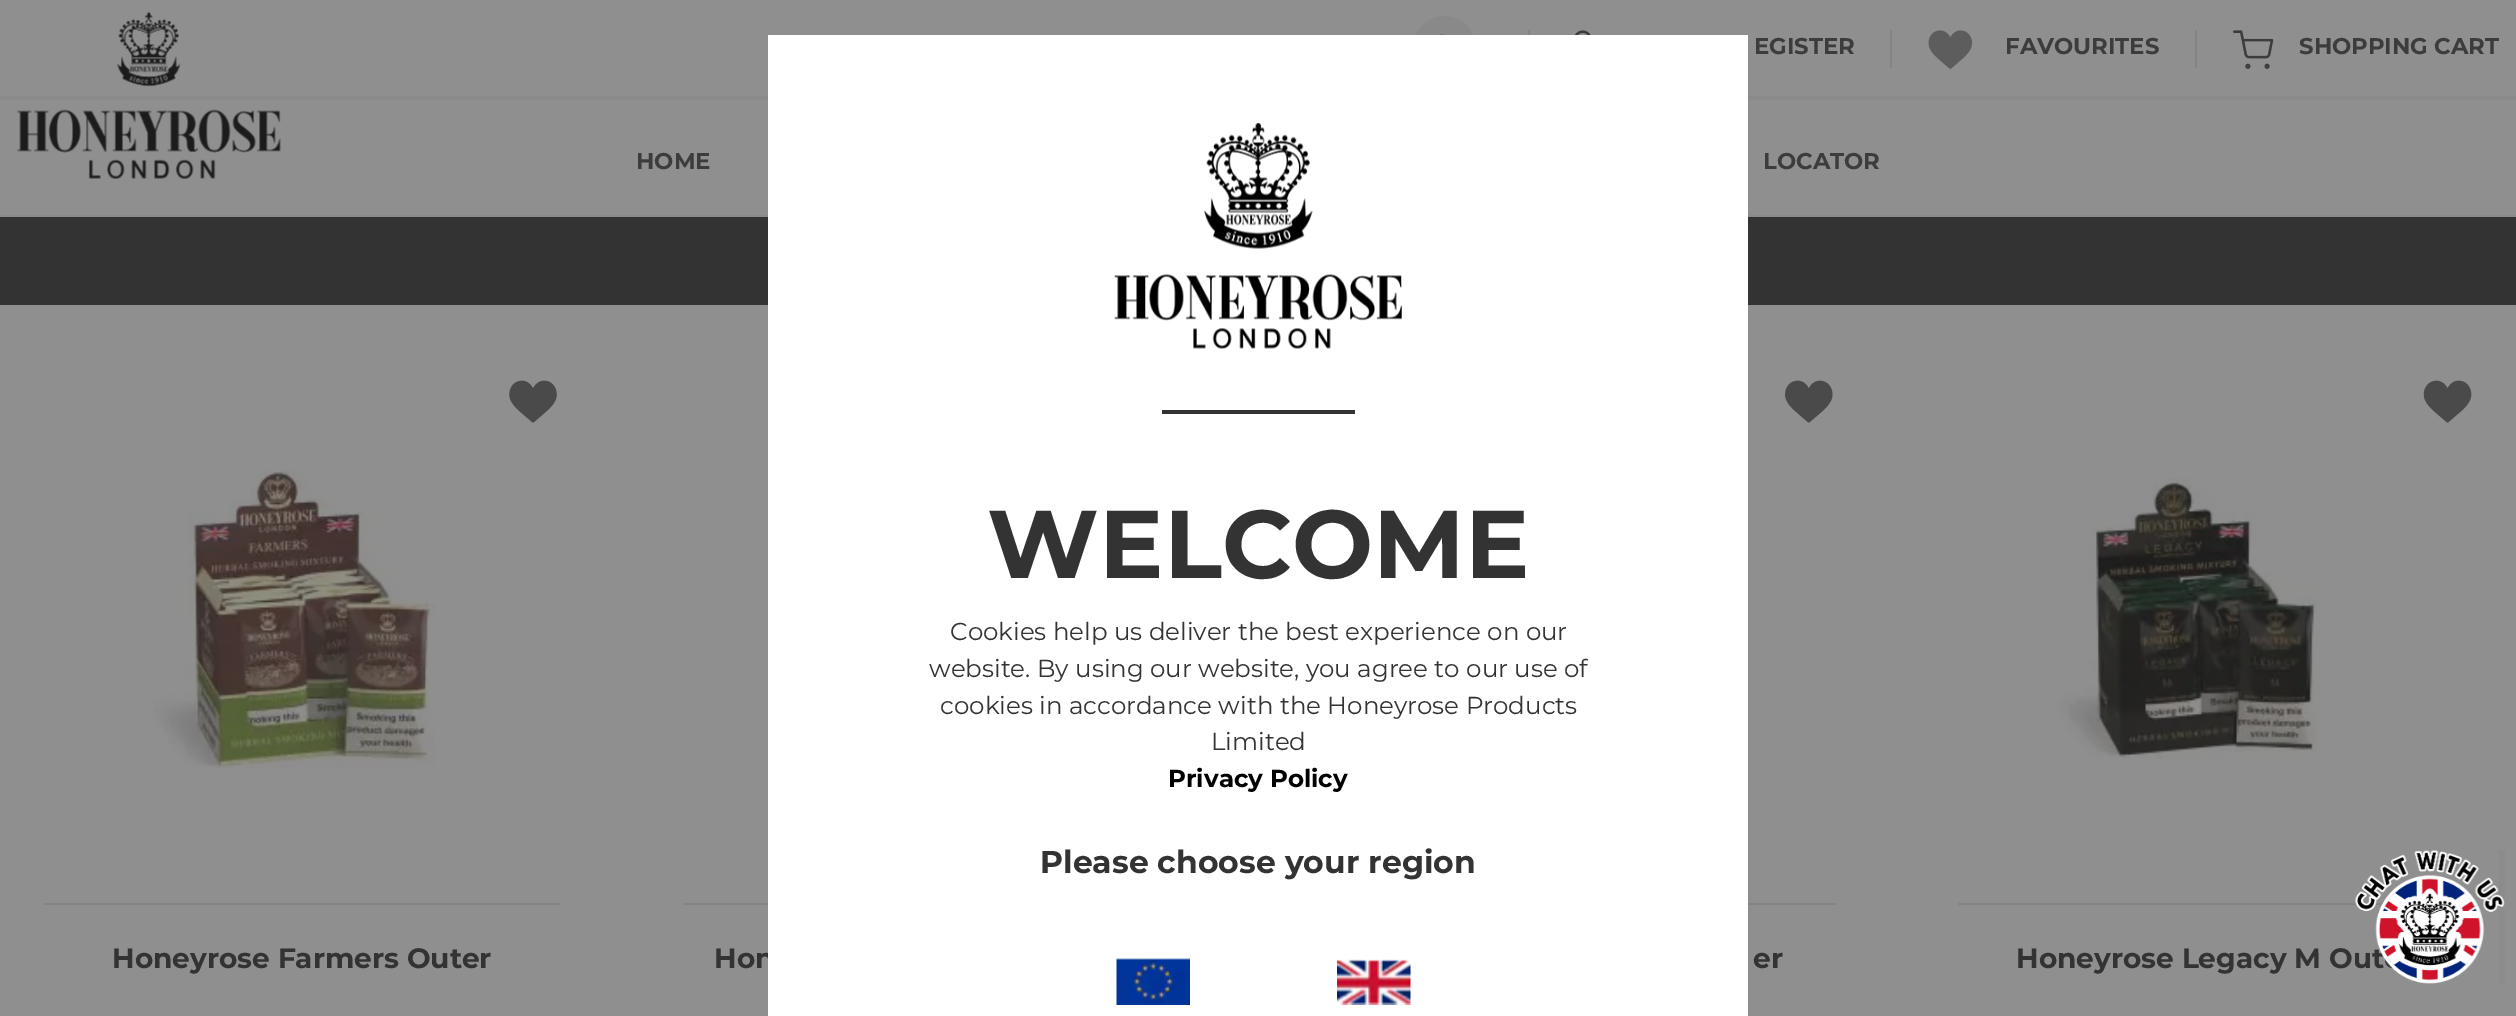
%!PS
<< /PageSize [2516 1016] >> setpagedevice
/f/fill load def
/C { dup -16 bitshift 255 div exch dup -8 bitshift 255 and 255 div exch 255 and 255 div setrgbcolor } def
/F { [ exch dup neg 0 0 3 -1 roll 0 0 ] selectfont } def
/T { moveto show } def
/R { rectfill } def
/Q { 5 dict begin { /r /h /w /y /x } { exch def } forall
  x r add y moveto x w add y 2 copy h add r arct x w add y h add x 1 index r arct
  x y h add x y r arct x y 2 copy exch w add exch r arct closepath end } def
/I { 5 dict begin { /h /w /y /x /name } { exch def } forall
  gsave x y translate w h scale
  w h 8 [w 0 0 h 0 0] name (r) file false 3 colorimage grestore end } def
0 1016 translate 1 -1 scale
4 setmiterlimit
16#8F8F8F C
0 0 2516 1016 R
16#8A8A8A C
0 96 2516 4 R
(1.rgb) 116 11 65 76 I
16#898989 C
1414 16 61 65 30.5 Q f
(2.rgb) 1440 34 4 1 I
16#848484 C
1528 30 2 5 R
(3.rgb) 1574 30 17 5 I
/Montserrat-Bold 22.75 F
16#3C3C3C C
(EGISTER) 1754 54 T
16#848484 C
1890 30 2 38 R
(4.rgb) 1928 30 45 39 I
16#3C3C3C C
(FAVOURITES) 2005 54 T
16#848484 C
2195 30 2 38 R
(5.rgb) 2233 30 41 39 I
16#3C3C3C C
(SHOPPING CART) 2299 54 T
16#8A8A8A C
0 215 2516 2 R
(6.rgb) 17 109 264 70 I
16#3C3C3C C
(HOME) 636 169 T
(LOCATOR) 1763 169 T
16#333333 C
0 217 2516 88 R
(7.rgb) 153 470 282 298 I
16#848484 C
44 903 516 2 R
(8.rgb) 509 380 48 43 I
/Montserrat-Bold 28 F
16#333333 C
(Honeyrose Farmers Outer) 112 968 T
16#848484 C
683 903 85 2 R
16#333333 C
(Hon) 714 968 T
16#848484 C
1748 903 88 2 R
(9.rgb) 1785 380 48 43 I
16#333333 C
(er) 1753 968 T
(10.rgb) 2057 478 261 281 I
16#848484 C
1958 903 425 2 R
(11.rgb) 2423 380 49 43 I
16#333333 C
(Honeyrose Legacy M Out) 2016 968 T
16#FFFFFF C
768 35 980 981 R
(12.rgb) 1204 123 109 126 I
(13.rgb) 1114 274 288 75 I
16#333333 C
1162 410 193 4 R
/Montserrat-Bold 96.25 F
(WELCOME) 987 578 T
/Montserrat-Regular 24.5 F
(Cookies help us deliver the best experience on our) 950 640 T
(website. By using our website, you agree to our use of) 929 677 T
(cookies in accordance with the Honeyrose Products) 940 714 T
(Limited) 1211 750 T
/Montserrat-Bold 24.5 F
16#000000 C
(Privacy Policy) 1168 787 T
/Montserrat-Bold 31.5 F
16#333333 C
(Please choose your region) 1040 873 T
(14.rgb) 1116 958 74 47 I
(15.rgb) 1337 959 74 46 I
(16.rgb) 2355 850 150 134 I
showpage
